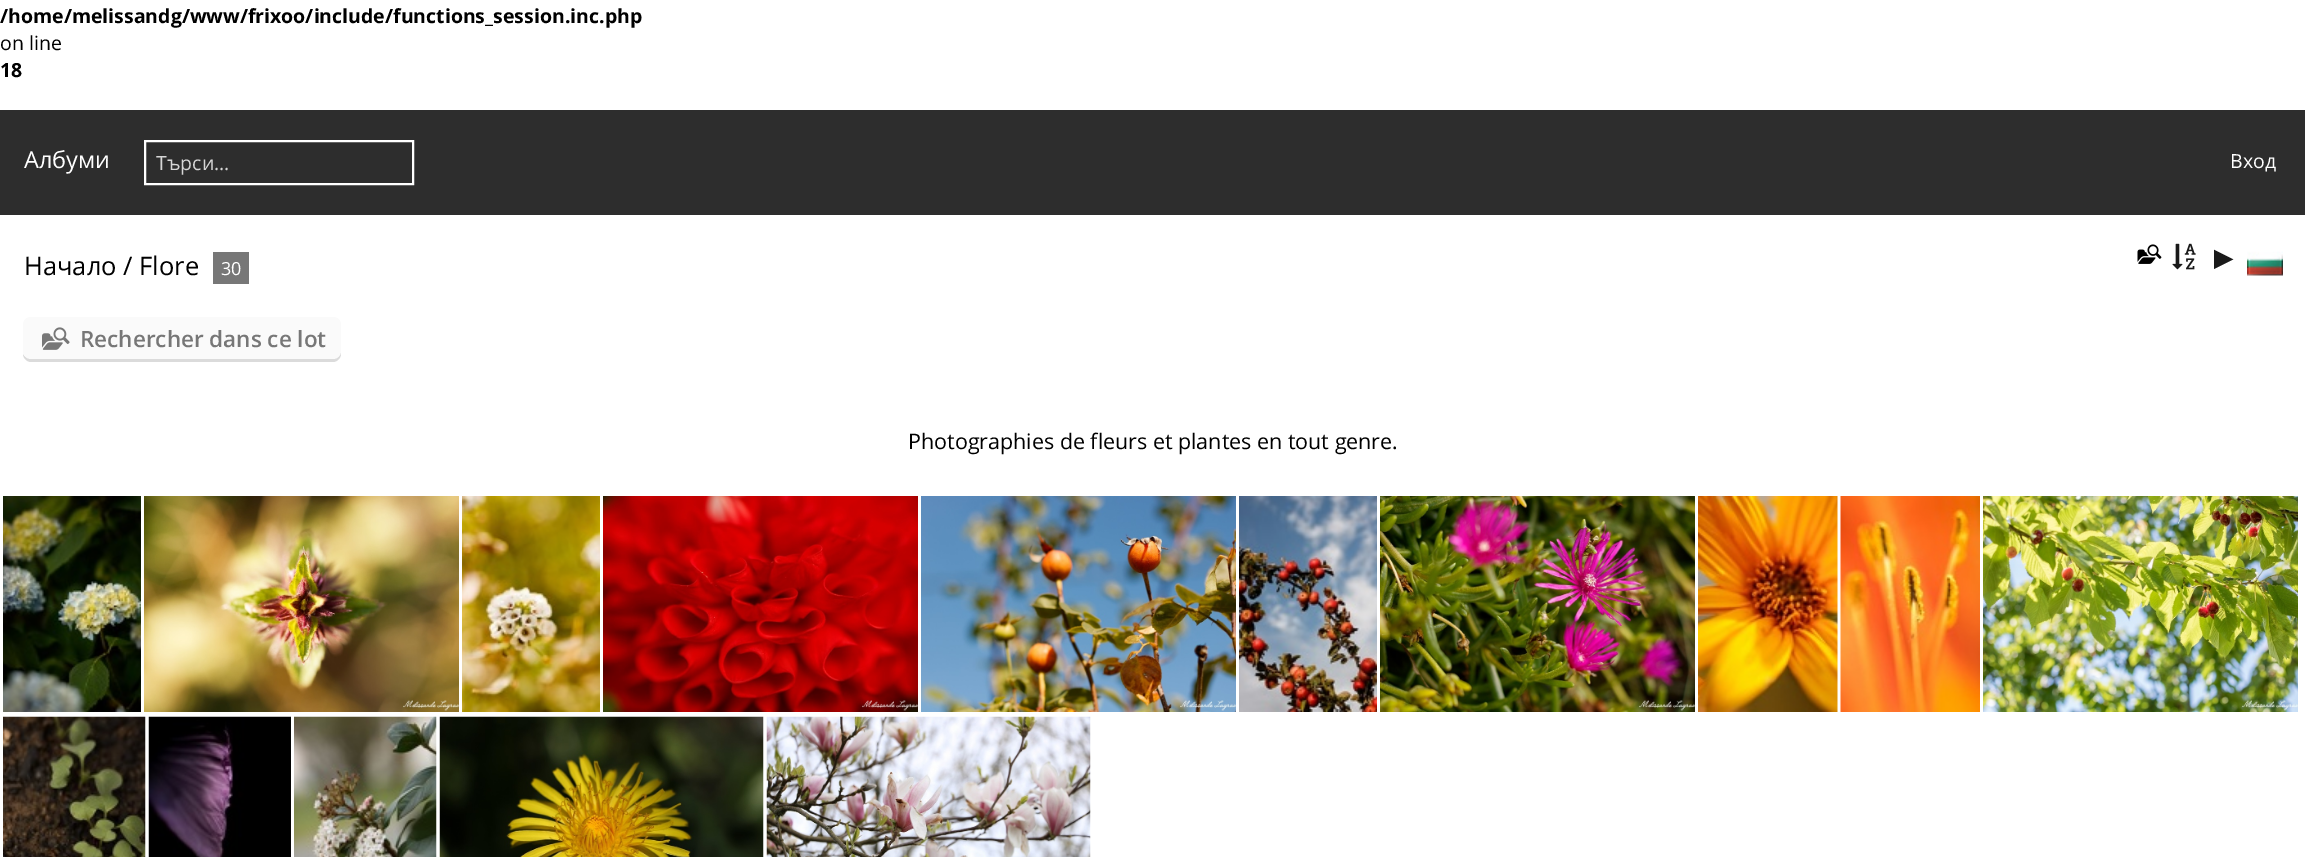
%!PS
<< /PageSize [2305 857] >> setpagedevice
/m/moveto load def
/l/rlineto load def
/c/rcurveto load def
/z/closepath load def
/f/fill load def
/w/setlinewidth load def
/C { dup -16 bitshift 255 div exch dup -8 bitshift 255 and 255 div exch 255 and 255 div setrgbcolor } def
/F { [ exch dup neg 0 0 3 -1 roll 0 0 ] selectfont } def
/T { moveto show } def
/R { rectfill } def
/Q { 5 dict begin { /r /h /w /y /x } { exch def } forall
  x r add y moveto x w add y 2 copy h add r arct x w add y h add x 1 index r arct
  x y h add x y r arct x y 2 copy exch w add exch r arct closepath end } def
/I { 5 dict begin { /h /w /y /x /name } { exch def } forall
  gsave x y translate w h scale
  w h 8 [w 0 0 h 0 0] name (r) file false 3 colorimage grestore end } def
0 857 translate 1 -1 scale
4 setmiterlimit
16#FFFFFF C
0 0 2305 857 R
/OpenSans-Bold 19.5 F
16#000000 C
(/home/melissandg/www/frixoo/include/functions_session.inc.php) 0 23 T
/OpenSans-Regular 19.5 F
(on line) 0 50 T
/OpenSans-Bold 19.5 F
(18) 0 77 T
16#2D2D2D C
0 110 2305 105 R
/OpenSans-Regular 23.5 F
16#FFFFFF C
(Албуми) 24 168 T
2 w
145 141 268 43 rectstroke
/OpenSans-Regular 19.5 F
16#D6D6D6 C
(Търси...) 156 170 T
16#FFFFFF C
(Вход) 2230 168 T
/OpenSans-Regular 25.5 F
16#000000 C
(Начало / Flore) 24 275 T
16#777777 C
213 252 36 32 R
/OpenSans-Regular 18 F
16#FFFFFF C
(30) 221 275 T
(1.rgb) 2137 244 25 20 I
(2.rgb) 2172 243 24 27 I
/DejaVuSans-Regular 25.5 F
16#1A1A1A C
(▶) 2214 266 T
(3.rgb) 2247 251 36 25 I
16#DBDBDB C
23 354 m 0 4 4 8 8 8 c 302 0 l 4 0 8 -4 8 -8 c 0 -26 l -1 -3 l 0 26 l 0 4 -3 7 -7 7 c -303 0 l -3 0 -6 -1 -7 -4 c z f
16#FAFAFA C
23 317 318 42 8 Q f
(4.rgb) 42 327 28 23 I
/OpenSans-SemiBold 22.5 F
16#777777 C
(Rechercher dans ce lot) 80 347 T
/OpenSans-Regular 21.45 F
16#000000 C
(Photographies de fleurs et plantes en tout genre.) 908 449 T
(5.rgb) 3 496 138 216 I
(6.rgb) 144 496 315 216 I
(7.rgb) 462 496 138 216 I
(8.rgb) 603 496 315 216 I
(9.rgb) 921 496 315 216 I
(10.rgb) 1239 496 138 216 I
(11.rgb) 1380 496 315 216 I
(12.rgb) 1698 496 140 216 I
(13.rgb) 1840 496 140 216 I
(14.rgb) 1983 496 315 216 I
(15.rgb) 3 716 143 141 I
(16.rgb) 148 716 143 141 I
(17.rgb) 294 716 143 141 I
(18.rgb) 439 716 325 141 I
(19.rgb) 766 716 325 141 I
showpage
